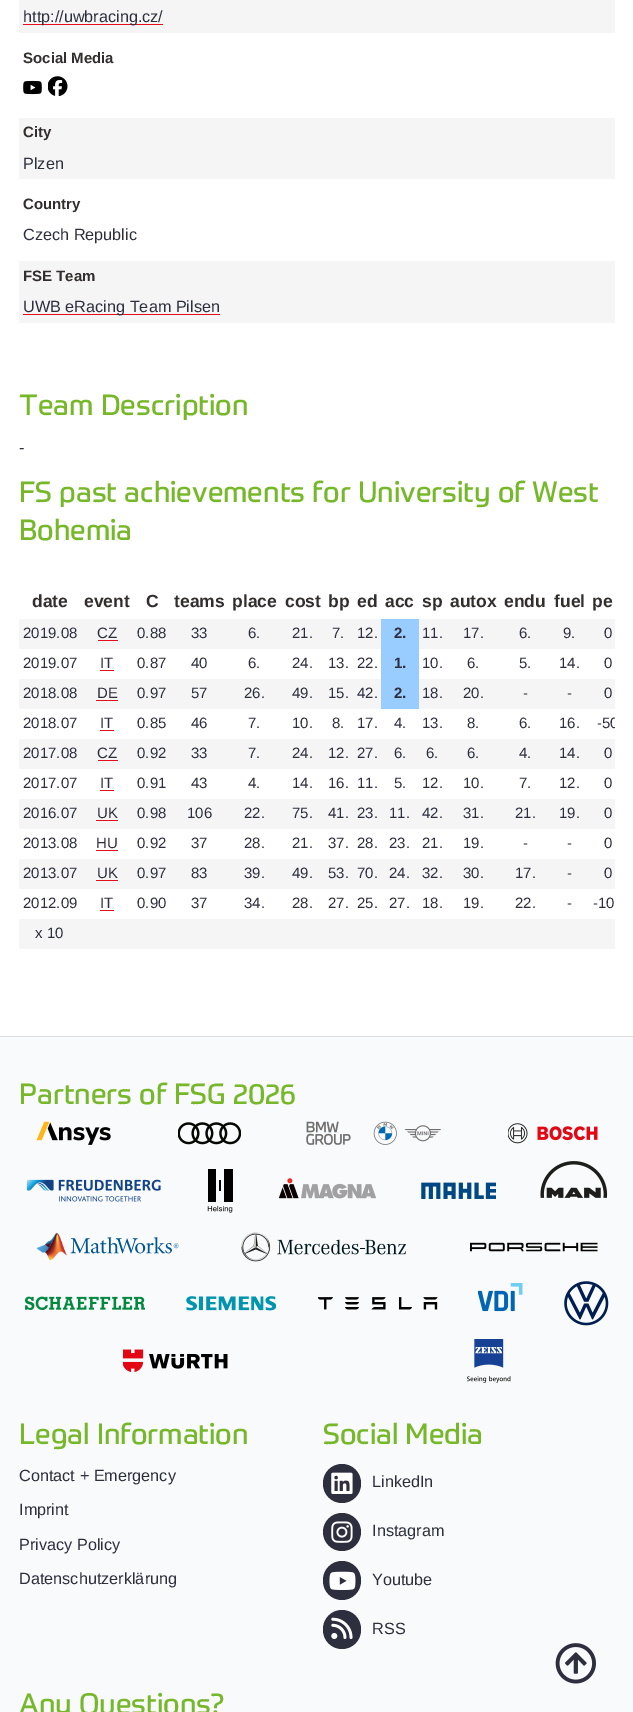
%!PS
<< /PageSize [633 1712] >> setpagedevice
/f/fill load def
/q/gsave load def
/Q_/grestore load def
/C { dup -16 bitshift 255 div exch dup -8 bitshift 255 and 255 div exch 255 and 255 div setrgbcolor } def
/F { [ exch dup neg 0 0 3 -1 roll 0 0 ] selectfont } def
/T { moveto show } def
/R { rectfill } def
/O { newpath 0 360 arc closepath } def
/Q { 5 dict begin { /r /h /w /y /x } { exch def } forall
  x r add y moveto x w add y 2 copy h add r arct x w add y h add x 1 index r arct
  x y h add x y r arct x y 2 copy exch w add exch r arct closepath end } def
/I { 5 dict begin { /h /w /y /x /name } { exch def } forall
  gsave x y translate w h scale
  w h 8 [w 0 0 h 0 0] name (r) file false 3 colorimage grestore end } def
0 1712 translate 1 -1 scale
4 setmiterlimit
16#FFFFFF C
0 0 633 1712 R
16#F5F5F5 C
19 0 596 33 R
16#E40E1B C
23 24 140 1 R
/LiberationSans-Regular 16.25 F
16#2E2F3E C
(http://uwbracing.cz/) 23 22 T
/LiberationSans-Bold 15 F
16#332E2E C
(Social Media) 23 63 T
(1.rgb) 23 80 19 15 I
(2.rgb) 48 76 20 20 I
16#F5F5F5 C
19 118 596 61 R
16#332E2E C
(City) 23 137 T
/LiberationSans-Regular 16.25 F
16#2E2F3E C
(Plzen) 23 169 T
/LiberationSans-Bold 15 F
16#332E2E C
(Country) 23 209 T
/LiberationSans-Regular 16.25 F
16#2E2F3E C
(Czech Republic) 23 240 T
16#F5F5F5 C
19 261 596 62 R
/LiberationSans-Bold 15 F
16#332E2E C
(FSE Team) 23 281 T
16#E40E1B C
23 314 197 1 R
/LiberationSans-Regular 16.25 F
16#2E2F3E C
(UWB eRacing Team Pilsen) 23 312 T
/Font-Regular 28.75 F
16#76B82A C
(Team Description) 19 415 T
/LiberationSans-Regular 16.25 F
16#2E2F3E C
(-) 19 453 T
/Font-Regular 28.75 F
16#76B82A C
(FS past achievements for University of West) 19 502 T
(Bohemia) 19 540 T
/LiberationSans-Bold 17.5 F
16#332E2E C
(date) 32 607 T
(event) 84 607 T
(C) 146 607 T
(teams) 174 607 T
(place) 232 607 T
(cost) 285 607 T
(bp) 328 607 T
(ed) 357 607 T
(acc) 385 607 T
(sp) 422 607 T
(autox) 450 607 T
(endu) 504 607 T
(fuel) 554 607 T
(pe) 592 607 T
16#F5F5F5 C
19 619 596 30 R
/LiberationSans-Regular 15 F
16#2E2F3E C
(2019.08) 23 638 T
(CZ) 97 638 T
16#E40E1B C
98 640 20 1 R
16#2E2F3E C
(0.88) 137 638 T
(33) 191 638 T
(6.) 248 638 T
(21.) 292 638 T
(7.) 332 638 T
(12.) 357 638 T
16#99CCFF C
381 619 38 60 R
/LiberationSans-Bold 15 F
16#2E2F3E C
(2.) 394 638 T
/LiberationSans-Regular 15 F
(11.) 422 638 T
(17.) 463 638 T
(6.) 519 638 T
(9.) 563 638 T
(0) 604 638 T
(2019.07) 23 668 T
(IT) 100 668 T
16#E40E1B C
100 670 14 1 R
16#2E2F3E C
(0.87) 137 668 T
(40) 191 668 T
(6.) 248 668 T
(24.) 292 668 T
(13.) 328 668 T
(22.) 357 668 T
/LiberationSans-Bold 15 F
(1.) 394 668 T
/LiberationSans-Regular 15 F
(10.) 422 668 T
(6.) 467 668 T
(5.) 519 668 T
(14.) 559 668 T
(0) 604 668 T
16#F5F5F5 C
19 679 596 30 R
16#2E2F3E C
(2018.08) 23 698 T
(DE) 97 698 T
16#E40E1B C
96 700 22 1 R
16#2E2F3E C
(0.97) 137 698 T
(57) 191 698 T
(26.) 244 698 T
(49.) 292 698 T
(15.) 328 698 T
(42.) 357 698 T
16#99CCFF C
381 679 38 30 R
/LiberationSans-Bold 15 F
16#2E2F3E C
(2.) 394 698 T
/LiberationSans-Regular 15 F
(18.) 422 698 T
(20.) 463 698 T
(-) 523 698 T
(-) 567 698 T
(0) 604 698 T
(2018.07) 23 728 T
(IT) 100 728 T
16#E40E1B C
100 730 14 1 R
16#2E2F3E C
(0.85) 137 728 T
(46) 191 728 T
(7.) 248 728 T
(10.) 292 728 T
(8.) 332 728 T
(17.) 357 728 T
(4.) 394 728 T
(13.) 422 728 T
(8.) 467 728 T
(6.) 519 728 T
(16.) 559 728 T
q
19 560 596 414 rectclip
(-50) 597 728 T
Q_
16#F5F5F5 C
19 739 596 30 R
16#2E2F3E C
(2017.08) 23 758 T
(CZ) 97 758 T
16#E40E1B C
98 760 20 1 R
16#2E2F3E C
(0.92) 137 758 T
(33) 191 758 T
(7.) 248 758 T
(24.) 292 758 T
(12.) 328 758 T
(27.) 357 758 T
(6.) 394 758 T
(6.) 426 758 T
(6.) 467 758 T
(4.) 519 758 T
(14.) 559 758 T
(0) 604 758 T
(2017.07) 23 788 T
(IT) 100 788 T
16#E40E1B C
100 790 14 1 R
16#2E2F3E C
(0.91) 137 788 T
(43) 191 788 T
(4.) 248 788 T
(14.) 292 788 T
(16.) 328 788 T
(11.) 357 788 T
(5.) 394 788 T
(12.) 422 788 T
(10.) 463 788 T
(7.) 519 788 T
(12.) 559 788 T
(0) 604 788 T
16#F5F5F5 C
19 799 596 30 R
16#2E2F3E C
(2016.07) 23 818 T
(UK) 97 818 T
16#E40E1B C
96 820 22 1 R
16#2E2F3E C
(0.98) 137 818 T
(106) 187 818 T
(22.) 244 818 T
(75.) 292 818 T
(41.) 328 818 T
(23.) 357 818 T
(11.) 389 818 T
(42.) 422 818 T
(31.) 463 818 T
(21.) 515 818 T
(19.) 559 818 T
(0) 604 818 T
(2013.08) 23 848 T
(HU) 96 848 T
16#E40E1B C
96 850 22 1 R
16#2E2F3E C
(0.92) 137 848 T
(37) 191 848 T
(28.) 244 848 T
(21.) 292 848 T
(37.) 328 848 T
(28.) 357 848 T
(23.) 389 848 T
(21.) 422 848 T
(19.) 463 848 T
(-) 523 848 T
(-) 567 848 T
(0) 604 848 T
16#F5F5F5 C
19 859 596 30 R
16#2E2F3E C
(2013.07) 23 878 T
(UK) 97 878 T
16#E40E1B C
96 880 22 1 R
16#2E2F3E C
(0.97) 137 878 T
(83) 191 878 T
(39.) 244 878 T
(49.) 292 878 T
(53.) 328 878 T
(70.) 357 878 T
(24.) 389 878 T
(32.) 422 878 T
(30.) 463 878 T
(17.) 515 878 T
(-) 567 878 T
(0) 604 878 T
(2012.09) 23 908 T
(IT) 100 908 T
16#E40E1B C
100 910 14 1 R
16#2E2F3E C
(0.90) 137 908 T
(37) 191 908 T
(34.) 244 908 T
(28.) 292 908 T
(27.) 328 908 T
(25.) 357 908 T
(27.) 389 908 T
(18.) 422 908 T
(19.) 463 908 T
(22.) 515 908 T
(-) 567 908 T
(-10) 593 908 T
16#F5F5F5 C
19 919 596 30 R
16#2E2F3E C
(x 10) 35 938 T
16#F9FAFB C
0 1037 633 675 R
16#DDDDDD C
0 1036 633 1 R
/Font-Regular 28.75 F
16#76B82A C
(Partners of FSG 2026) 19 1104 T
(3.rgb) 36 1121 75 24 I
(4.rgb) 178 1122 63 23 I
(5.rgb) 306 1121 135 24 I
(6.rgb) 508 1123 90 21 I
(7.rgb) 26 1179 135 23 I
(8.rgb) 207 1169 26 44 I
(9.rgb) 279 1178 97 21 I
(10.rgb) 421 1182 75 17 I
(11.rgb) 540 1161 68 37 I
(12.rgb) 36 1232 143 29 I
(13.rgb) 241 1232 165 30 I
(14.rgb) 470 1242 128 10 I
(15.rgb) 25 1296 120 14 I
(16.rgb) 186 1296 90 15 I
(17.rgb) 318 1297 120 13 I
(18.rgb) 478 1283 45 29 I
(19.rgb) 564 1281 45 45 I
(20.rgb) 123 1349 105 23 I
(21.rgb) 467 1339 44 44 I
(Legal Information) 19 1444 T
/LiberationSans-Regular 16.25 F
16#2E2F3E C
(Contact + Emergency) 19 1481 T
(Imprint) 19 1515 T
(Privacy Policy) 19 1550 T
(Datenschutzerklärung) 19 1584 T
/Font-Regular 28.75 F
16#76B82A C
(Social Media) 323 1444 T
16#2E2F3E C
323 1464 38 39 19 Q f
(22.rgb) 331 1472 22 22 I
/LiberationSans-Regular 16.25 F
(LinkedIn) 372 1487 T
342 1532 19 O f
(23.rgb) 331 1521 22 22 I
(Instagram) 372 1536 T
323 1561 38 39 19 Q f
(24.rgb) 329 1571 27 19 I
(Youtube) 372 1585 T
323 1610 38 39 19 Q f
(25.rgb) 331 1617 22 22 I
(RSS) 372 1634 T
/Font-Regular 28.75 F
16#76B82A C
(Any Questions?) 19 1714 T
(26.rgb) 555 1643 41 41 I
showpage
